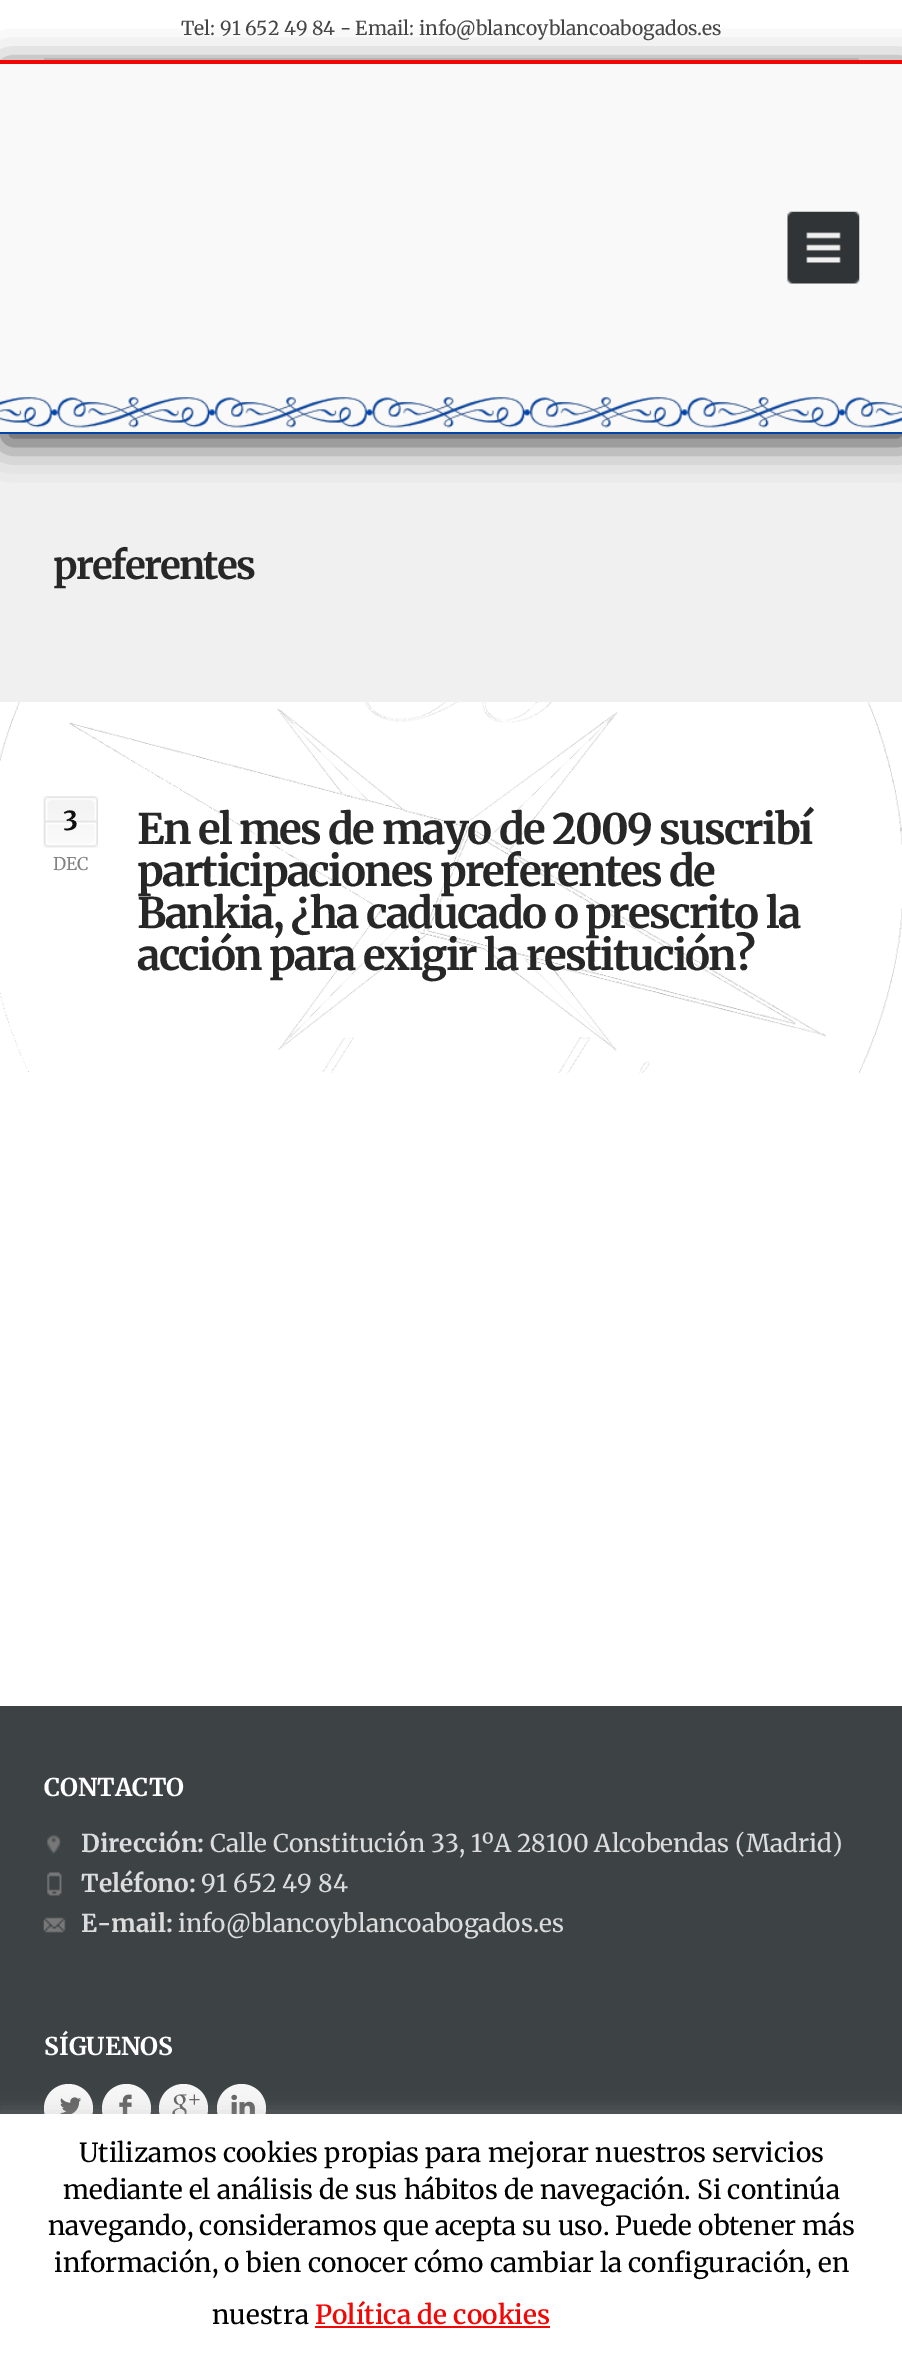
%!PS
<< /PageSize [902 2363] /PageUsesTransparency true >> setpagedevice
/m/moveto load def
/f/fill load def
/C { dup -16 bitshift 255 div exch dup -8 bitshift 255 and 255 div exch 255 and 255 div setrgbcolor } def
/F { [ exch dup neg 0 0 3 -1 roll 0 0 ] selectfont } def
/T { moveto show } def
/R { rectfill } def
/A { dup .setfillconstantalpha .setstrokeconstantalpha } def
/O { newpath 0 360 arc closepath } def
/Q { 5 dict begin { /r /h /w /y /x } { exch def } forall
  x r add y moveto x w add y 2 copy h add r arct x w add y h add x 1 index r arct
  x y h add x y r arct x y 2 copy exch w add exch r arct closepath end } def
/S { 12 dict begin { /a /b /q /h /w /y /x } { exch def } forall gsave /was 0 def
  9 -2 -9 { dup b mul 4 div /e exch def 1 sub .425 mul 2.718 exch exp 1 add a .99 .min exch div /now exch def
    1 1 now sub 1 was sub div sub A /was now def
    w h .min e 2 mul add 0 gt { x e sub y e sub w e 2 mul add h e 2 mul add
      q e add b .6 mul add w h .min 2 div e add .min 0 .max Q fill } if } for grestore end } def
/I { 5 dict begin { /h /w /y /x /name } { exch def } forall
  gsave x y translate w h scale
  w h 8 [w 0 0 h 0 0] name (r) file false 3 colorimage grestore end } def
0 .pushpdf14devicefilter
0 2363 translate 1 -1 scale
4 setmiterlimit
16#FFFFFF C
0 0 902 2363 R
16#E3E3E3 C
44 58 815 2 R
16#F0F0F0 C
0 434 902 268 R
16#000000 C
4 68 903 375 0 17.5 .7 S
16#F9F9F9 C
0 64 902 368 R
(1.rgb) 0 397 902 31 I
16#F20707 C
0 60 902 4 R
16#0044AA C
0 432 902 2 R
(2.rgb) 787 211 73 73 I
/Merriweather-Regular 19.25 F
16#464646 C
(Tel: 91 652 49 84 - Email: info@blancoyblancoabogados.es) 181 35 T
/Merriweather-Bold 38.5 F
16#272727 C
53 579 m -1.75 0 (preferentes) ashow
(3.rgb) 0 702 902 371 I
(4.rgb) 43 796 55 52 I
/Merriweather-Bold 26.25 F
16#0F0F0F C
(3) 63 830 T
/Merriweather-Regular 17.5 F
16#828282 C
(DEC) 53 870 T
/Merriweather-Bold 42 F
16#272727 C
137 844 m -1.75 0 (En el mes de mayo de 2009 suscribí) ashow
137 886 m -1.75 0 (participaciones preferentes de) ashow
137 928 m -1.75 0 (Bankia, ¿ha caducado o prescrito la) ashow
137 970 m -1.75 0 (acción para exigir la restitución?) ashow
16#3D4345 C
0 1706 902 408 R
/Merriweather-Bold 24.5 F
16#FFFFFF C
(CONTACTO) 44 1796 T
(5.rgb) 47 1835 14 19 I
16#DCDCDC C
(Dirección:) 81 1852 T
/Merriweather-Regular 24.5 F
(Calle Constitución 33, 1ºA 28100 Alcobendas \(Madrid\)) 210 1852 T
(6.rgb) 47 1872 15 24 I
/Merriweather-Bold 24.5 F
(Teléfono:) 81 1892 T
/Merriweather-Regular 24.5 F
(91 652 49 84) 201 1892 T
(7.rgb) 43 1917 23 16 I
/Merriweather-Bold 24.5 F
(E-mail:) 81 1932 T
/Merriweather-Regular 24.5 F
(info@blancoyblancoabogados.es) 178 1932 T
/Merriweather-Bold 24.5 F
16#FFFFFF C
(SÍGUENOS) 44 2055 T
16#F6F6F6 C
68.5 2108.5 24.5 O f
(8.rgb) 60 2097 22 17 I
126.5 2108.5 24.5 O f
(9.rgb) 119 2094 13 20 I
183.5 2108.5 24.5 O f
/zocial-Medium 23 F
16#646464 C
(+) 172 2114 T
16#F6F6F6 C
241.5 2108.5 24.5 O f
(10.rgb) 231 2094 24 20 I
16#ACABAB C
0 2112 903 251 0 9 .3 S
16#FFFFFF C
0 2114 902 249 R
/Merriweather-Regular 26.25 F
16#000000 C
(Utilizamos cookies propias para mejorar nuestros servicios) 79 2162 T
(mediante el análisis de sus hábitos de navegación. Si continúa) 63 2199 T
(navegando, consideramos que acepta su uso. Puede obtener más) 48 2235 T
(información, o bien conocer cómo cambiar la configuración, en) 54 2272 T
(nuestra) 212 2324 T
/Merriweather-SemiBold 26.25 F
16#F20707 C
(Política de cookies) 315 2324 T
315 2326 235 2 R
.poppdf14devicefilter showpage
